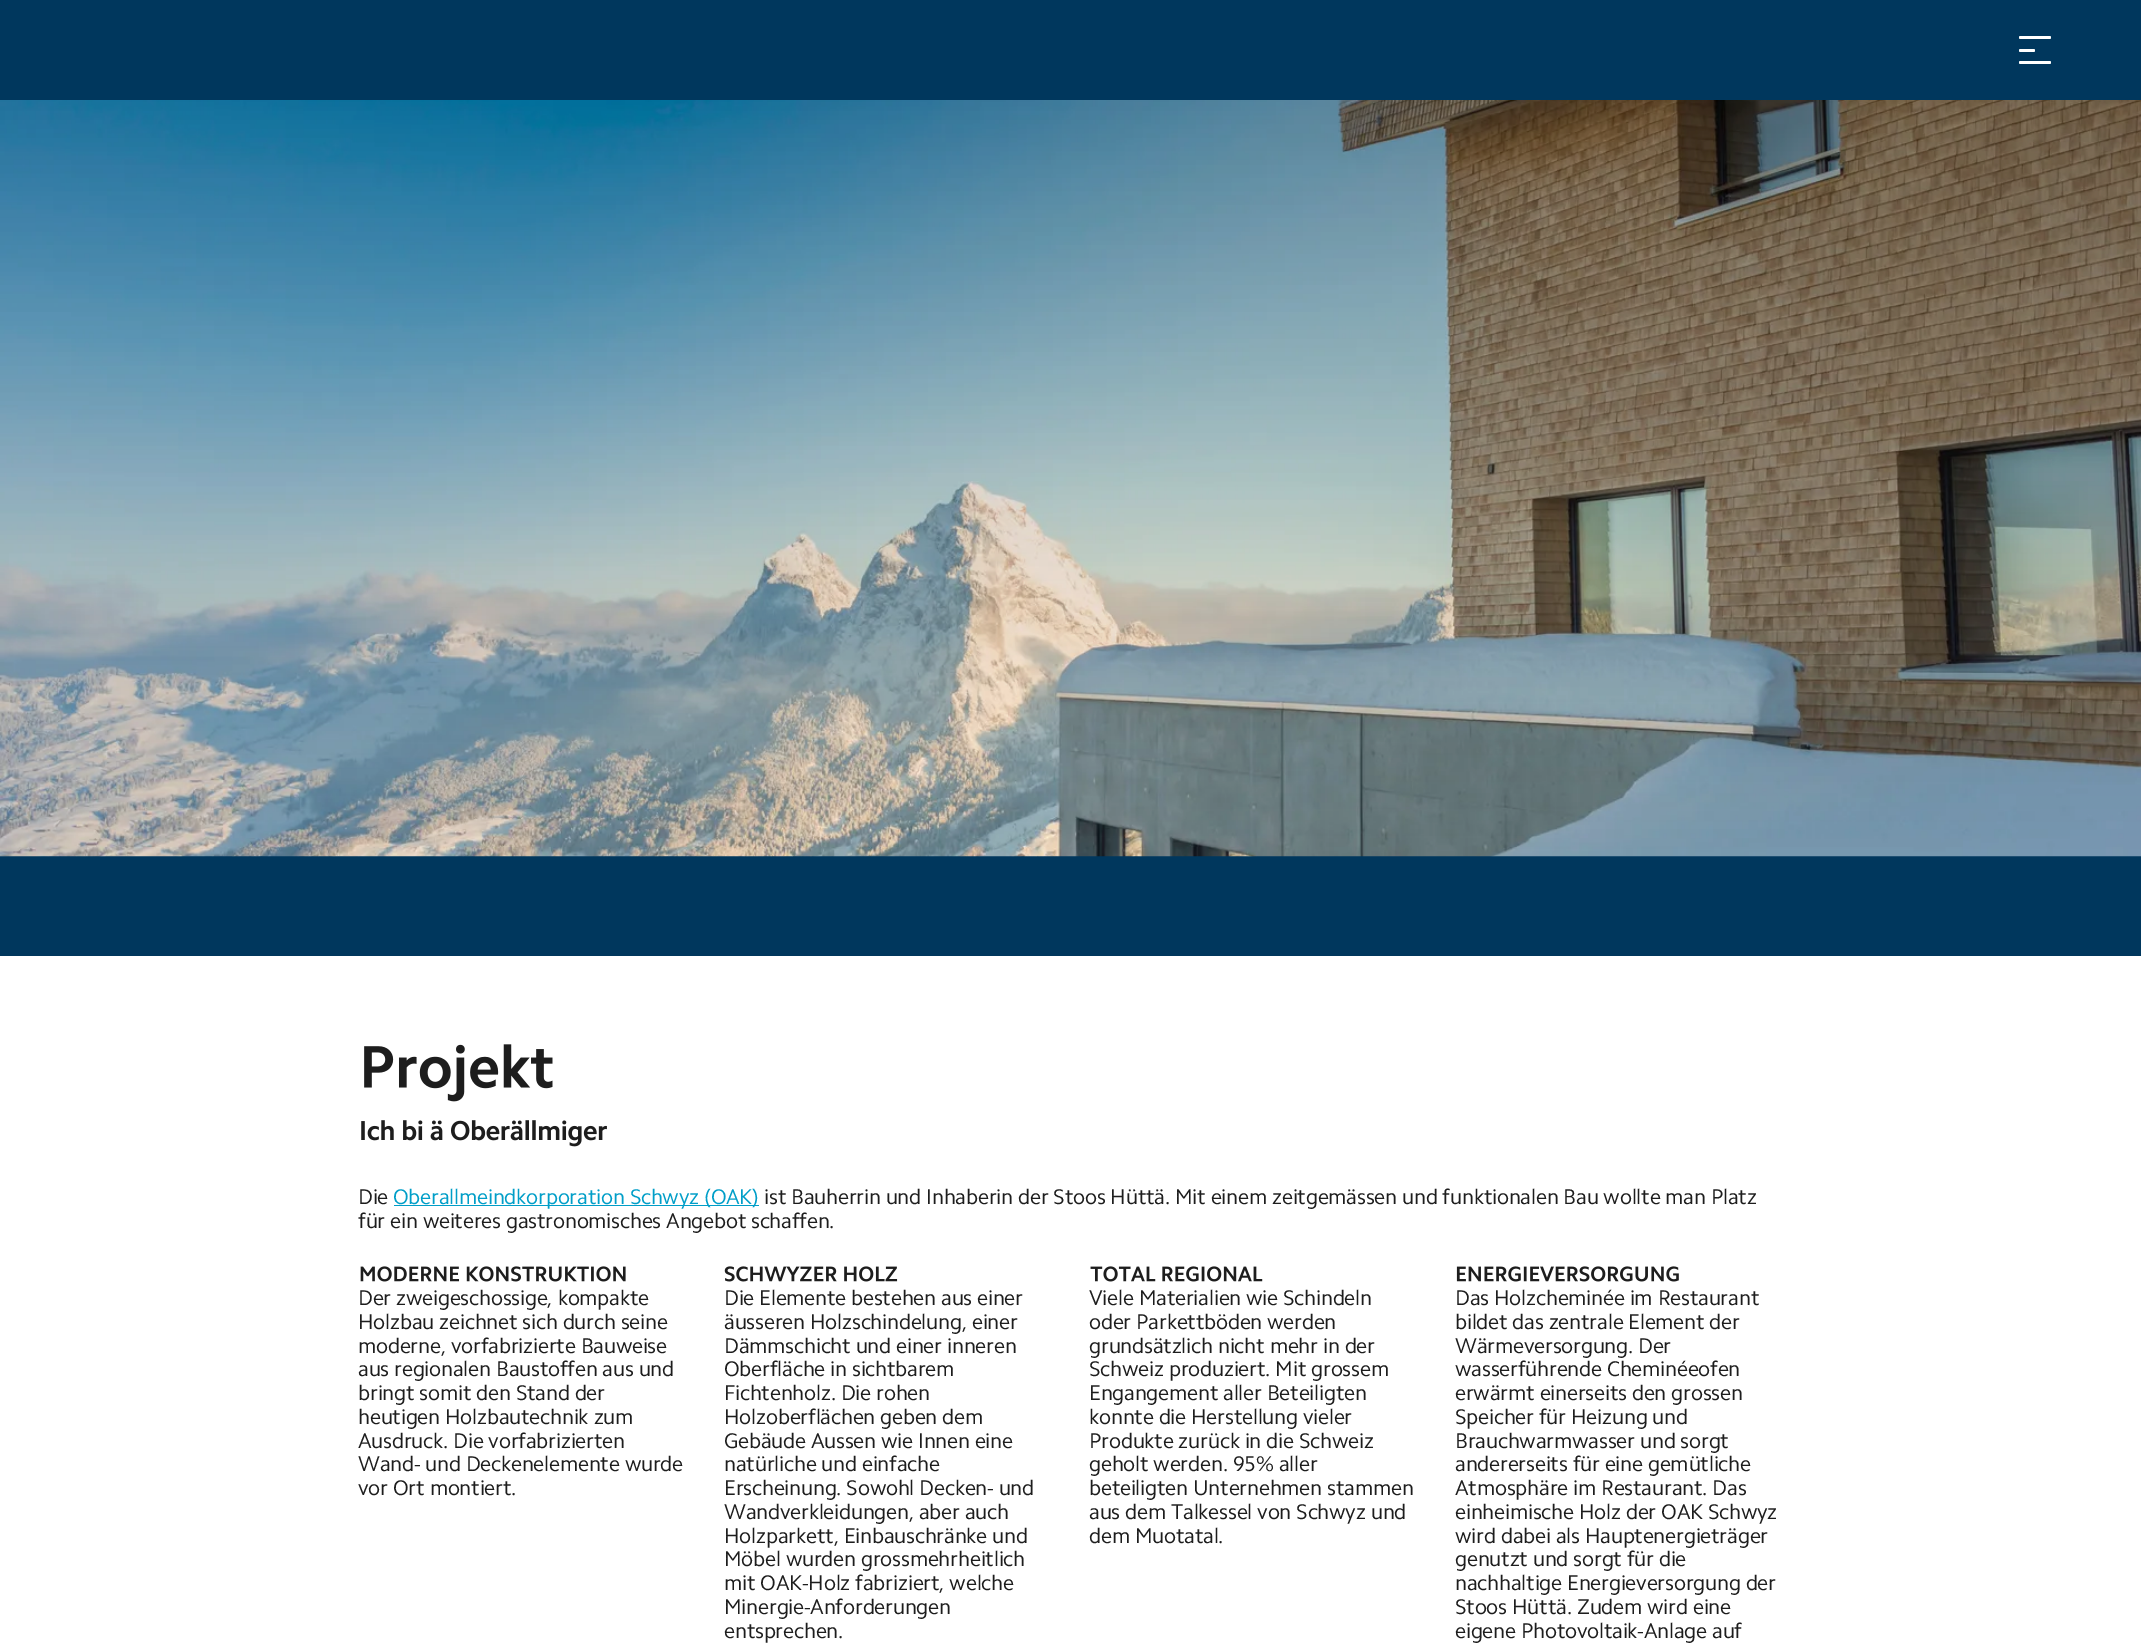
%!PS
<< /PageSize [2141 1650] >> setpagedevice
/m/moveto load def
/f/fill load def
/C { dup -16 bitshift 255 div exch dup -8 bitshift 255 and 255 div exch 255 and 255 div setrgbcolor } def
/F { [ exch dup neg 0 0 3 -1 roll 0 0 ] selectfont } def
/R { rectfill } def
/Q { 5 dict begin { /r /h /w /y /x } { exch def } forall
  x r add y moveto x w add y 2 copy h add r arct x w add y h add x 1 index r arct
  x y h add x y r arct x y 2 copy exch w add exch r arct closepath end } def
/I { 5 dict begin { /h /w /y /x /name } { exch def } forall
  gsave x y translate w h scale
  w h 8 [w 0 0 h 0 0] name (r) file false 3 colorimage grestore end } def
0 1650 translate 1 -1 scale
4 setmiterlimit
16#FFFFFF C
0 0 2141 1650 R
16#00375D C
0 0 2141 100 R
16#FFFFFF C
2019 36 32 3 1.5 Q f
2019 49 16 3 1.5 Q f
2019 61 32 3 1.5 Q f
16#00375D C
0 856 2141 100 R
(1.rgb) 0 100 2141 757 I
(2.rgb) 364 1044 189 58 I
(3.rgb) 361 1120 246 27 I
/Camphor-Regular 21.25 F
16#1D1D1D C
358 1204 m -.25 0 (Die) ashow
16#009EC8 C
394 1205 365 1 R
393 1204 m -.25 0 (Oberallmeindkorporation Schwyz \(OAK\)) ashow
16#1D1D1D C
764 1204 m -.25 0 (ist Bauherrin und Inhaberin der Stoos Hüttä. Mit einem zeitgemässen und funktionalen Bau wollte man Platz) ashow
358 1228 m -.25 0 (für ein weiteres gastronomisches Angebot schaffen.) ashow
(4.rgb) 360 1266 266 16 I
358 1305 m -.25 0 (Der zweigeschossige, kompakte) ashow
358 1329 m -.25 0 (Holzbau zeichnet sich durch seine) ashow
358 1353 m -.25 0 (moderne, vorfabrizierte Bauweise) ashow
358 1376 m -.25 0 (aus regionalen Baustoffen aus und) ashow
358 1400 m -.25 0 (bringt somit den Stand der) ashow
358 1424 m -.25 0 (heutigen Holzbautechnik zum) ashow
358 1448 m -.25 0 (Ausdruck. Die vorfabrizierten) ashow
358 1471 m -.25 0 (Wand- und Deckenelemente wurde) ashow
358 1495 m -.25 0 (vor Ort montiert.) ashow
(5.rgb) 724 1266 174 16 I
724 1305 m -.25 0 (Die Elemente bestehen aus einer) ashow
724 1329 m -.25 0 (äusseren Holzschindelung, einer) ashow
724 1353 m -.25 0 (Dämmschicht und einer inneren) ashow
724 1376 m -.25 0 (Oberfläche in sichtbarem) ashow
724 1400 m -.25 0 (Fichtenholz. Die rohen) ashow
724 1424 m -.25 0 (Holzoberflächen geben dem) ashow
724 1448 m -.25 0 (Gebäude Aussen wie Innen eine) ashow
724 1471 m -.25 0 (natürliche und einfache) ashow
724 1495 m -.25 0 (Erscheinung. Sowohl Decken- und) ashow
724 1519 m -.25 0 (Wandverkleidungen, aber auch) ashow
724 1543 m -.25 0 (Holzparkett, Einbauschränke und) ashow
724 1566 m -.25 0 (Möbel wurden grossmehrheitlich) ashow
724 1590 m -.25 0 (mit OAK-Holz fabriziert, welche) ashow
724 1614 m -.25 0 (Minergie-Anforderungen) ashow
724 1638 m -.25 0 (entsprechen.) ashow
(6.rgb) 1090 1266 173 16 I
1089 1305 m -.25 0 (Viele Materialien wie Schindeln) ashow
1089 1329 m -.25 0 (oder Parkettböden werden) ashow
1089 1353 m -.25 0 (grundsätzlich nicht mehr in der) ashow
1089 1376 m -.25 0 (Schweiz produziert. Mit grossem) ashow
1089 1400 m -.25 0 (Engangement aller Beteiligten) ashow
1089 1424 m -.25 0 (konnte die Herstellung vieler) ashow
1089 1448 m -.25 0 (Produkte zurück in die Schweiz) ashow
1089 1471 m -.25 0 (geholt werden. 95% aller) ashow
1089 1495 m -.25 0 (beteiligten Unternehmen stammen) ashow
1089 1519 m -.25 0 (aus dem Talkessel von Schwyz und) ashow
1089 1543 m -.25 0 (dem Muotatal.) ashow
(7.rgb) 1456 1266 223 16 I
1455 1305 m -.25 0 (Das Holzcheminée im Restaurant) ashow
1455 1329 m -.25 0 (bildet das zentrale Element der) ashow
1455 1353 m -.25 0 (Wärmeversorgung. Der) ashow
1455 1376 m -.25 0 (wasserführende Cheminéeofen) ashow
1455 1400 m -.25 0 (erwärmt einerseits den grossen) ashow
1455 1424 m -.25 0 (Speicher für Heizung und) ashow
1455 1448 m -.25 0 (Brauchwarmwasser und sorgt) ashow
1455 1471 m -.25 0 (andererseits für eine gemütliche) ashow
1455 1495 m -.25 0 (Atmosphäre im Restaurant. Das) ashow
1455 1519 m -.25 0 (einheimische Holz der OAK Schwyz) ashow
1455 1543 m -.25 0 (wird dabei als Hauptenergieträger) ashow
1455 1566 m -.25 0 (genutzt und sorgt für die) ashow
1455 1590 m -.25 0 (nachhaltige Energieversorgung der) ashow
1455 1614 m -.25 0 (Stoos Hüttä. Zudem wird eine) ashow
1455 1638 m -.25 0 (eigene Photovoltaik-Anlage auf) ashow
showpage
